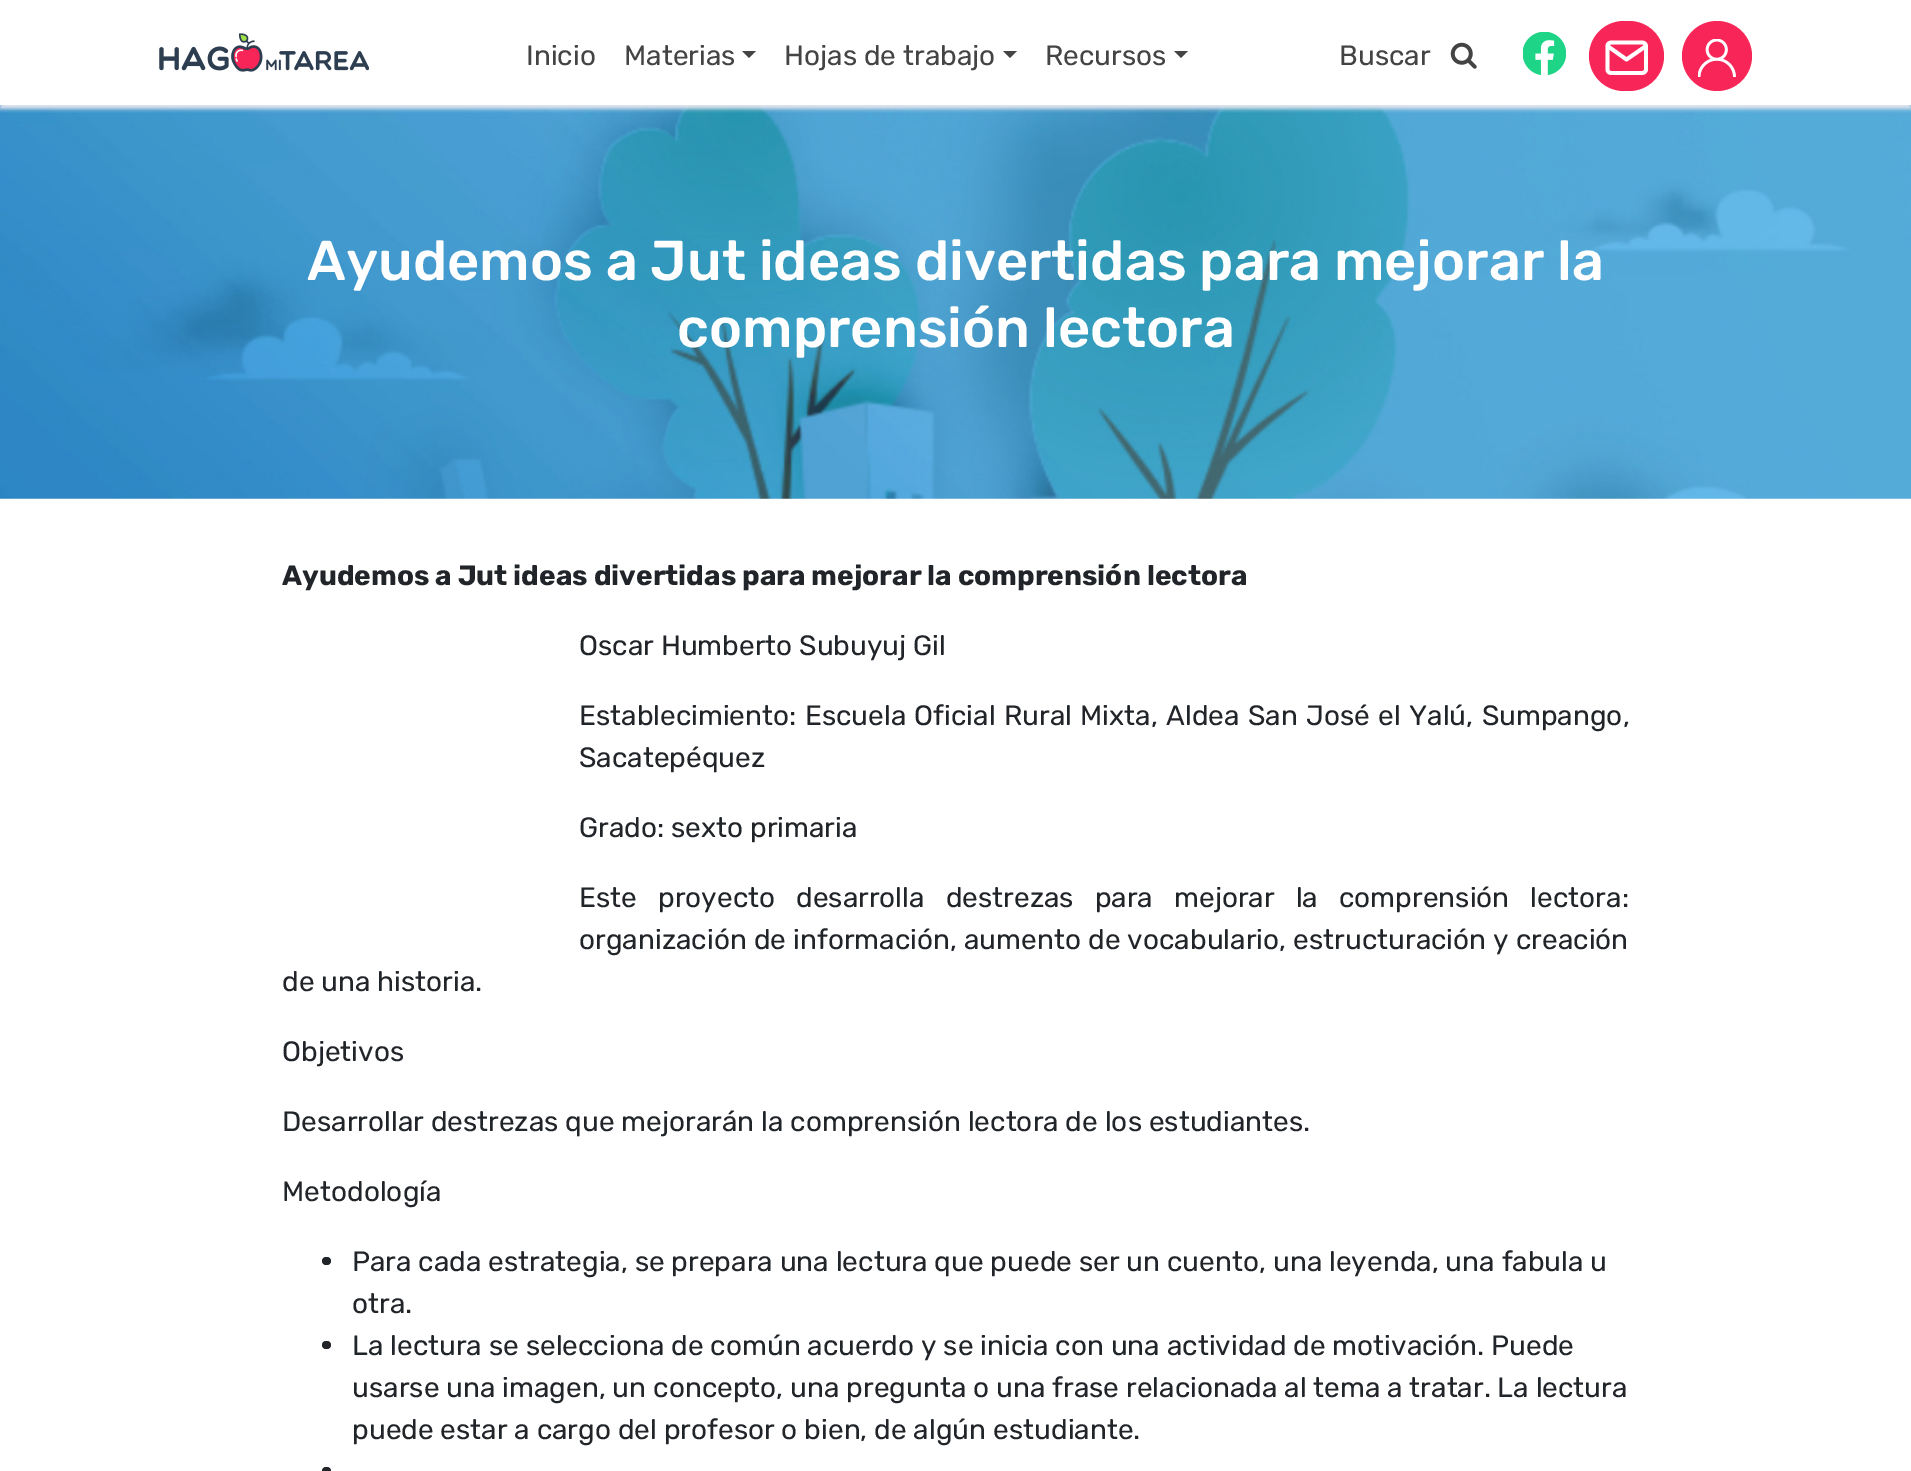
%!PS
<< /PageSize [1911 1471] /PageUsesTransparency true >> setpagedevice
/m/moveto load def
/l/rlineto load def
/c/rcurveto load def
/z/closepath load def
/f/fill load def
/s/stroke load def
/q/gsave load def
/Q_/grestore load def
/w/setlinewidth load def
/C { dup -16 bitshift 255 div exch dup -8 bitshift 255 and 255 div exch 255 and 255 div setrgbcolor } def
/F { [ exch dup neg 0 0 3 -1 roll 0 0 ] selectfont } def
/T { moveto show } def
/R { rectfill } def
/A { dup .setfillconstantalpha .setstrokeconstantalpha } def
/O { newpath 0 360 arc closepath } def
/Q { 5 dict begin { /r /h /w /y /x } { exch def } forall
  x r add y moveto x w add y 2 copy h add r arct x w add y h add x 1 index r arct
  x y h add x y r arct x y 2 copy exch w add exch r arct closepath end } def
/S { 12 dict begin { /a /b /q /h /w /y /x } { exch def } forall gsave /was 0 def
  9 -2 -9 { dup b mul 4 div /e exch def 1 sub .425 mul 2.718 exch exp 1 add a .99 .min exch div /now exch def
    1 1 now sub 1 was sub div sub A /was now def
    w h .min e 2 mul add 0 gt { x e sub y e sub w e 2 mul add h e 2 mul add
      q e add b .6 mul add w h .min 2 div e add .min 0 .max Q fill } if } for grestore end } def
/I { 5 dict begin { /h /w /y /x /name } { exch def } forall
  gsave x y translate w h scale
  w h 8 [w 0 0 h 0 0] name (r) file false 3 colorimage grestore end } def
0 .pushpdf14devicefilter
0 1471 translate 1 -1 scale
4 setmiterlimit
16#FFFFFF C
0 0 1911 1471 R
(5.rgb) 0 105 1911 394 I
q
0 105 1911 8 rectclip
16#E5E6EF C
0 4 1911 105 0 2 1 S
Q_
(1.rgb) 159 33 210 39 I
/Rubik-Regular 28 F
16#444444 C
(Inicio) 526 65 T
(Materias) 624 65 T
742 51 m 14 0 l -7 7 l z f
(Hojas de trabajo) 784 65 T
1003 51 m 14 0 l -7 7 l z f
(Recursos) 1045 65 T
1174 51 m 14 0 l -7 7 l z f
(Buscar) 1339 65 T
(2.rgb) 1450 42 27 27 I
(3.rgb) 1523 32 43 43 I
16#F82558 C
1589 21 75 70 35 Q f
16#FFFFFF C
3.8 w
1 setlinecap
1 setlinejoin
1611.5 42.5 m 30.5 0 l 2 0 4 1.5 4 3.5 c 0 23.5 l 0 2 -2 3.5 -4 3.5 c -30.5 0 l -2.5 0 -4 -1.5 -4 -3.5 c 0 -23.5 l 0 -2 1.5 -3.5 4 -3.5 c z 1646 46 m -19.5 13.5 l -19 -13.5 l s
16#F82558 C
1717 56 35 O f
(4.rgb) 1698 39 38 38 I
/Rubik-Medium 56 F
16#FFFFFF C
(Ayudemos a Jut ideas divertidas para mejorar la) 307 280 T
(comprensión lectora) 677 347 T
/Rubik-Bold 28 F
16#212529 C
(Ayudemos a Jut ideas divertidas para mejorar la comprensión lectora) 282 585 T
/Rubik-Regular 28 F
(Oscar Humberto Subuyuj Gil) 579 655 T
(Establec) 579 725 T
691 725 m 1.5 0 32 (imiento: Escuela Oficial Rural Mixta, Aldea San José el Yalú, Sumpango,) widthshow
(Sacatepéquez) 579 767 T
(Grado: sexto primaria) 579 837 T
579 907 m 14.25 0 32 (Este proyecto desarrolla destrezas para mejorar la comprensión lectora:) widthshow
579 949 m .25 0 32 (organización de información, aumento de vocabulario, estructuración y creación) widthshow
(de una historia.) 282 991 T
(Objetivos) 282 1061 T
(Desarrollar destrezas que mejorarán la comprensión lectora de los estudiantes.) 282 1131 T
(Metodología) 282 1201 T
322 1257 9 8 4 Q f
(Para cada estrategia, se prepara una lectura que puede ser un cuento, una leyenda, una fabula u) 352 1271 T
(otra.) 352 1313 T
322 1341 9 8 4 Q f
(La lectura se selecciona de común acuerdo y se inicia con una actividad de motivación. Puede) 352 1355 T
(usarse una imagen, un concepto, una pregunta o una frase relacionada al tema a tratar. La lectura) 352 1397 T
(puede estar a cargo del profesor o bien, de algún estudiante.) 352 1439 T
322 1467 9 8 4 Q f
.poppdf14devicefilter showpage
